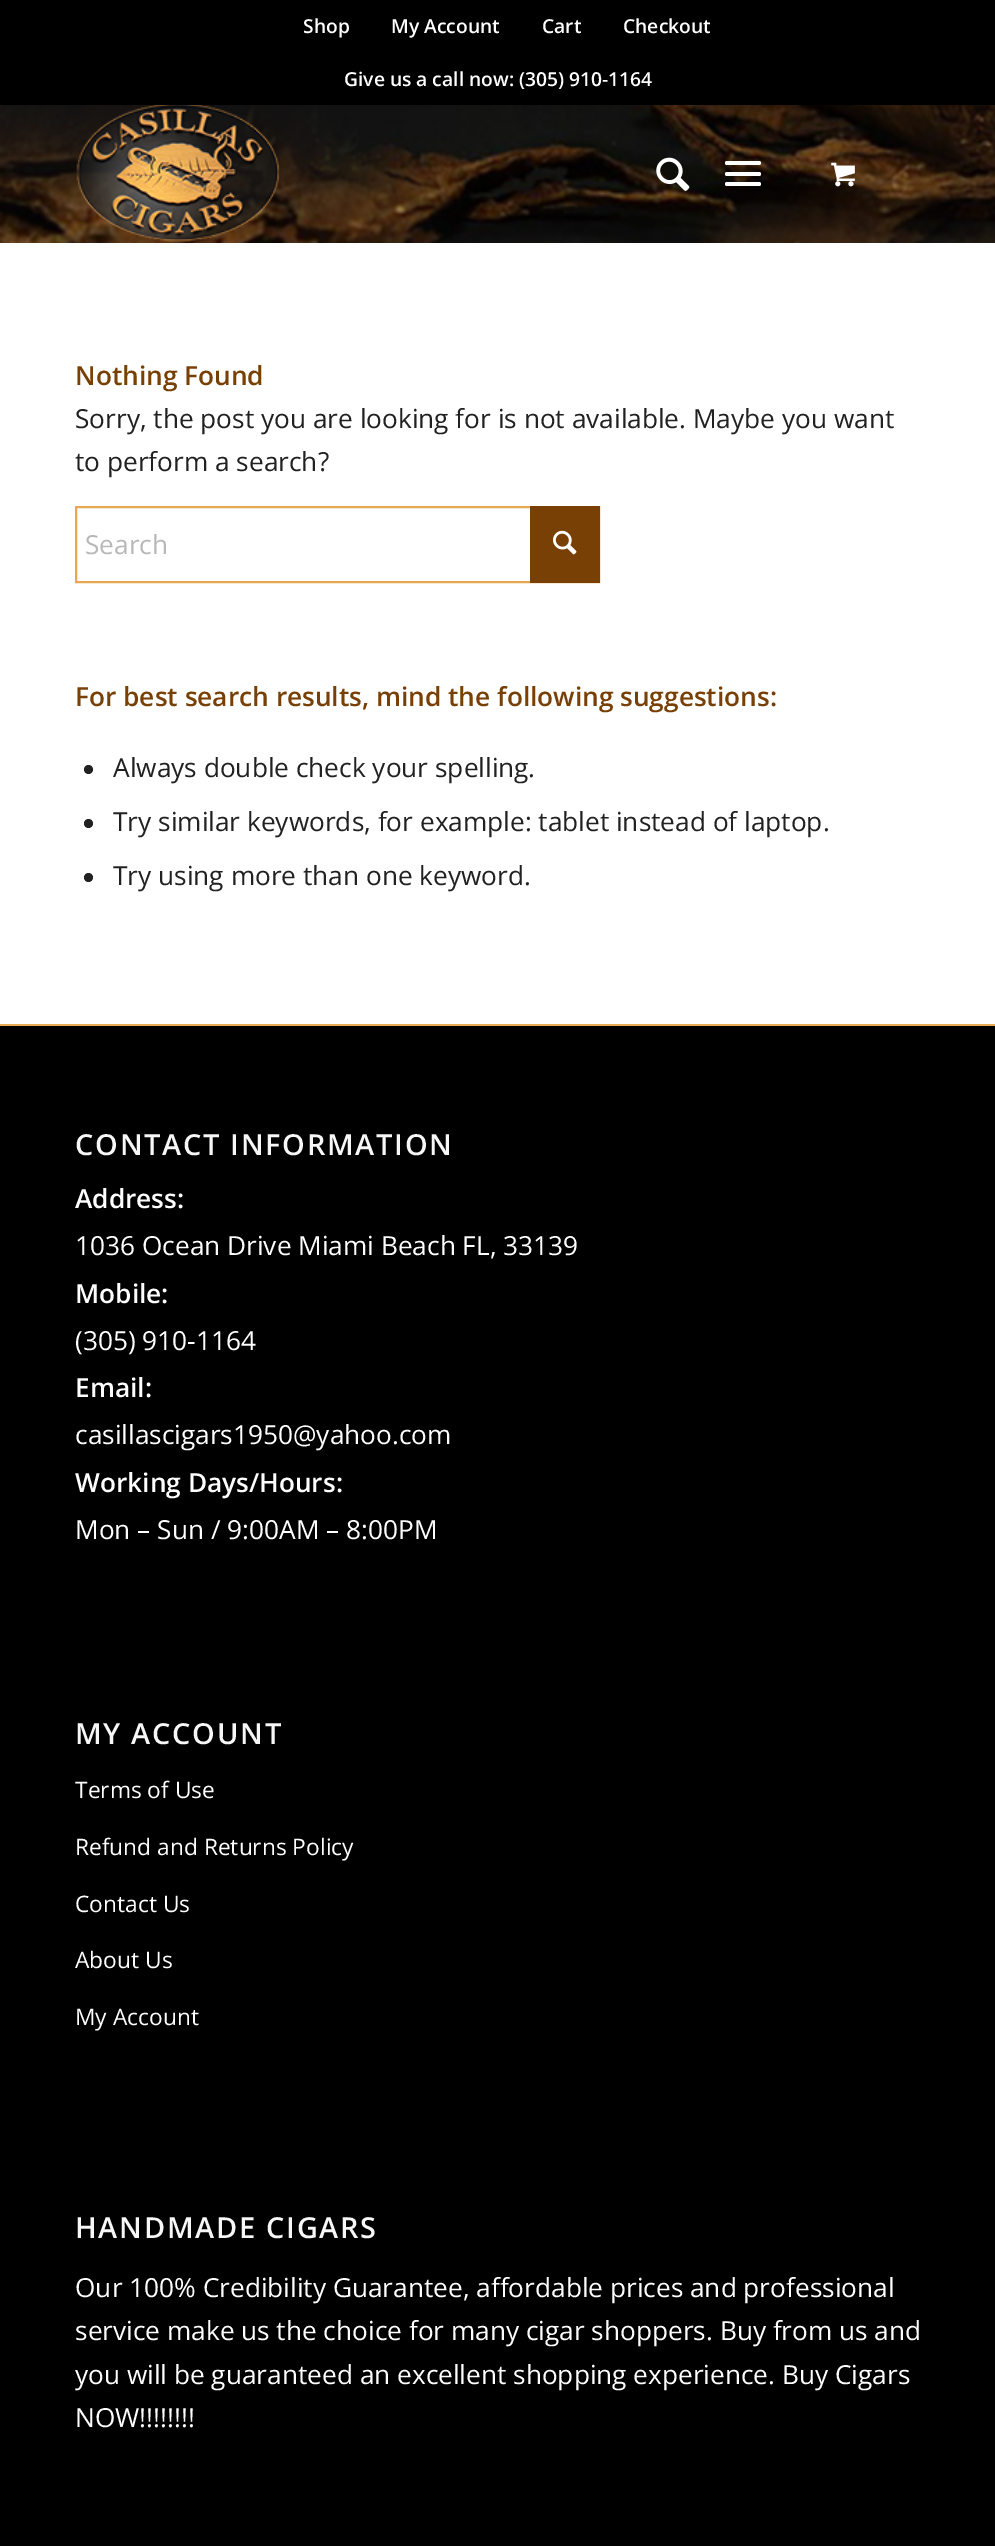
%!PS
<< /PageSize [995 2546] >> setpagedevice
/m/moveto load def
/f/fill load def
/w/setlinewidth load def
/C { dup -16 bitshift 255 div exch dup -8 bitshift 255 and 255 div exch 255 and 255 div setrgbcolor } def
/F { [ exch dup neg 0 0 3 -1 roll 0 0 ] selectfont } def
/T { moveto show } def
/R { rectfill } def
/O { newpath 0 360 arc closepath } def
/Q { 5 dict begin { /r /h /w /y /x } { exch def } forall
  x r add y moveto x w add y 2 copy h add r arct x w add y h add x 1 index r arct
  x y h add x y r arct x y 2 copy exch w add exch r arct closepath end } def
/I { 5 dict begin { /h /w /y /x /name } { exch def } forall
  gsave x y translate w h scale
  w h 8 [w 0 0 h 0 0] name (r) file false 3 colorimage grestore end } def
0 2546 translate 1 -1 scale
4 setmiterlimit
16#000000 C
0 0 995 2546 R
/OpenSans-SemiBold 19.25 F
16#FFFFFF C
(Shop) 303 33 T
(My Account) 391 33 T
(Cart) 542 33 T
(Checkout) 623 33 T
(Give us a call now: \(305\) 910-1164) 344 86 T
(1.rgb) 0 105 995 138 I
(2.rgb) 76 105 204 137 I
(3.rgb) 656 157 34 34 I
725 172 36 4 2 Q f
725 161 36 4 2 Q f
725 182 36 4 2 Q f
(4.rgb) 831 162 24 25 I
0 243 995 781 R
/OpenSans-SemiBold 26.25 F
16#784004 C
(Nothing Found) 75 385 T
/OpenSans-Regular 26.25 F
16#212121 C
(Sorry, the post you are looking for is not available. Maybe you want) 75 428 T
(to perform a search?) 75 471 T
16#E5A853 C
2 w
76 507 523 75 rectstroke
16#B8B8B8 C
(Search) 85 554 T
16#784004 C
530 506 70 77 R
(5.rgb) 553 530 24 25 I
/OpenSans-SemiBold 26.25 F
(For best search results, mind the following suggestions:) 75 706 T
16#212121 C
88.5 769.5 4.5 O f
/OpenSans-Regular 26.25 F
(Always double check your spelling.) 113 777 T
88.5 823.5 4.5 O f
(Try similar keywords, for example: tablet instead of laptop.) 113 831 T
88.5 877.5 4.5 O f
(Try using more than one keyword.) 113 885 T
16#E9AB54 C
0 1024 995 2 R
/OpenSans-SemiBold 28.9 F
16#F7F7F7 C
75 1155 m 1.75 0 (CONTACT INFORMATION) ashow
/OpenSans-SemiBold 26.25 F
16#FFFFFF C
(Address:) 75 1208 T
/OpenSans-Regular 26.25 F
(1036 Ocean Drive Miami Beach FL, 33139) 75 1255 T
/OpenSans-SemiBold 26.25 F
(Mobile:) 75 1303 T
/OpenSans-Regular 26.25 F
(\(305\) 910-1164) 75 1350 T
/OpenSans-SemiBold 26.25 F
(Email:) 75 1397 T
/OpenSans-Regular 26.25 F
(casillascigars1950@yahoo.com) 75 1444 T
/OpenSans-SemiBold 26.25 F
(Working Days/Hours:) 75 1492 T
/OpenSans-Regular 26.25 F
(Mon – Sun / 9:00AM – 8:00PM) 75 1539 T
/OpenSans-SemiBold 28.9 F
16#F7F7F7 C
75 1744 m 1.75 0 (MY ACCOUNT) ashow
/OpenSans-Regular 22.75 F
16#FFFFFF C
(Terms of Use) 75 1798 T
(Refund and Returns Policy) 75 1855 T
(Contact Us) 75 1912 T
(About Us) 75 1968 T
(My Account) 75 2025 T
/OpenSans-SemiBold 28.9 F
16#F7F7F7 C
75 2238 m 1.75 0 (HANDMADE CIGARS) ashow
/OpenSans-Regular 26.25 F
16#FFFFFF C
(Our 100% Credibility Guarantee, affordable prices and professional) 75 2297 T
(service make us the choice for many cigar shoppers. Buy from us and) 75 2340 T
(you will be guaranteed an excellent shopping experience. Buy Cigars) 75 2384 T
(NOW!!!!!!!!) 75 2427 T
showpage
